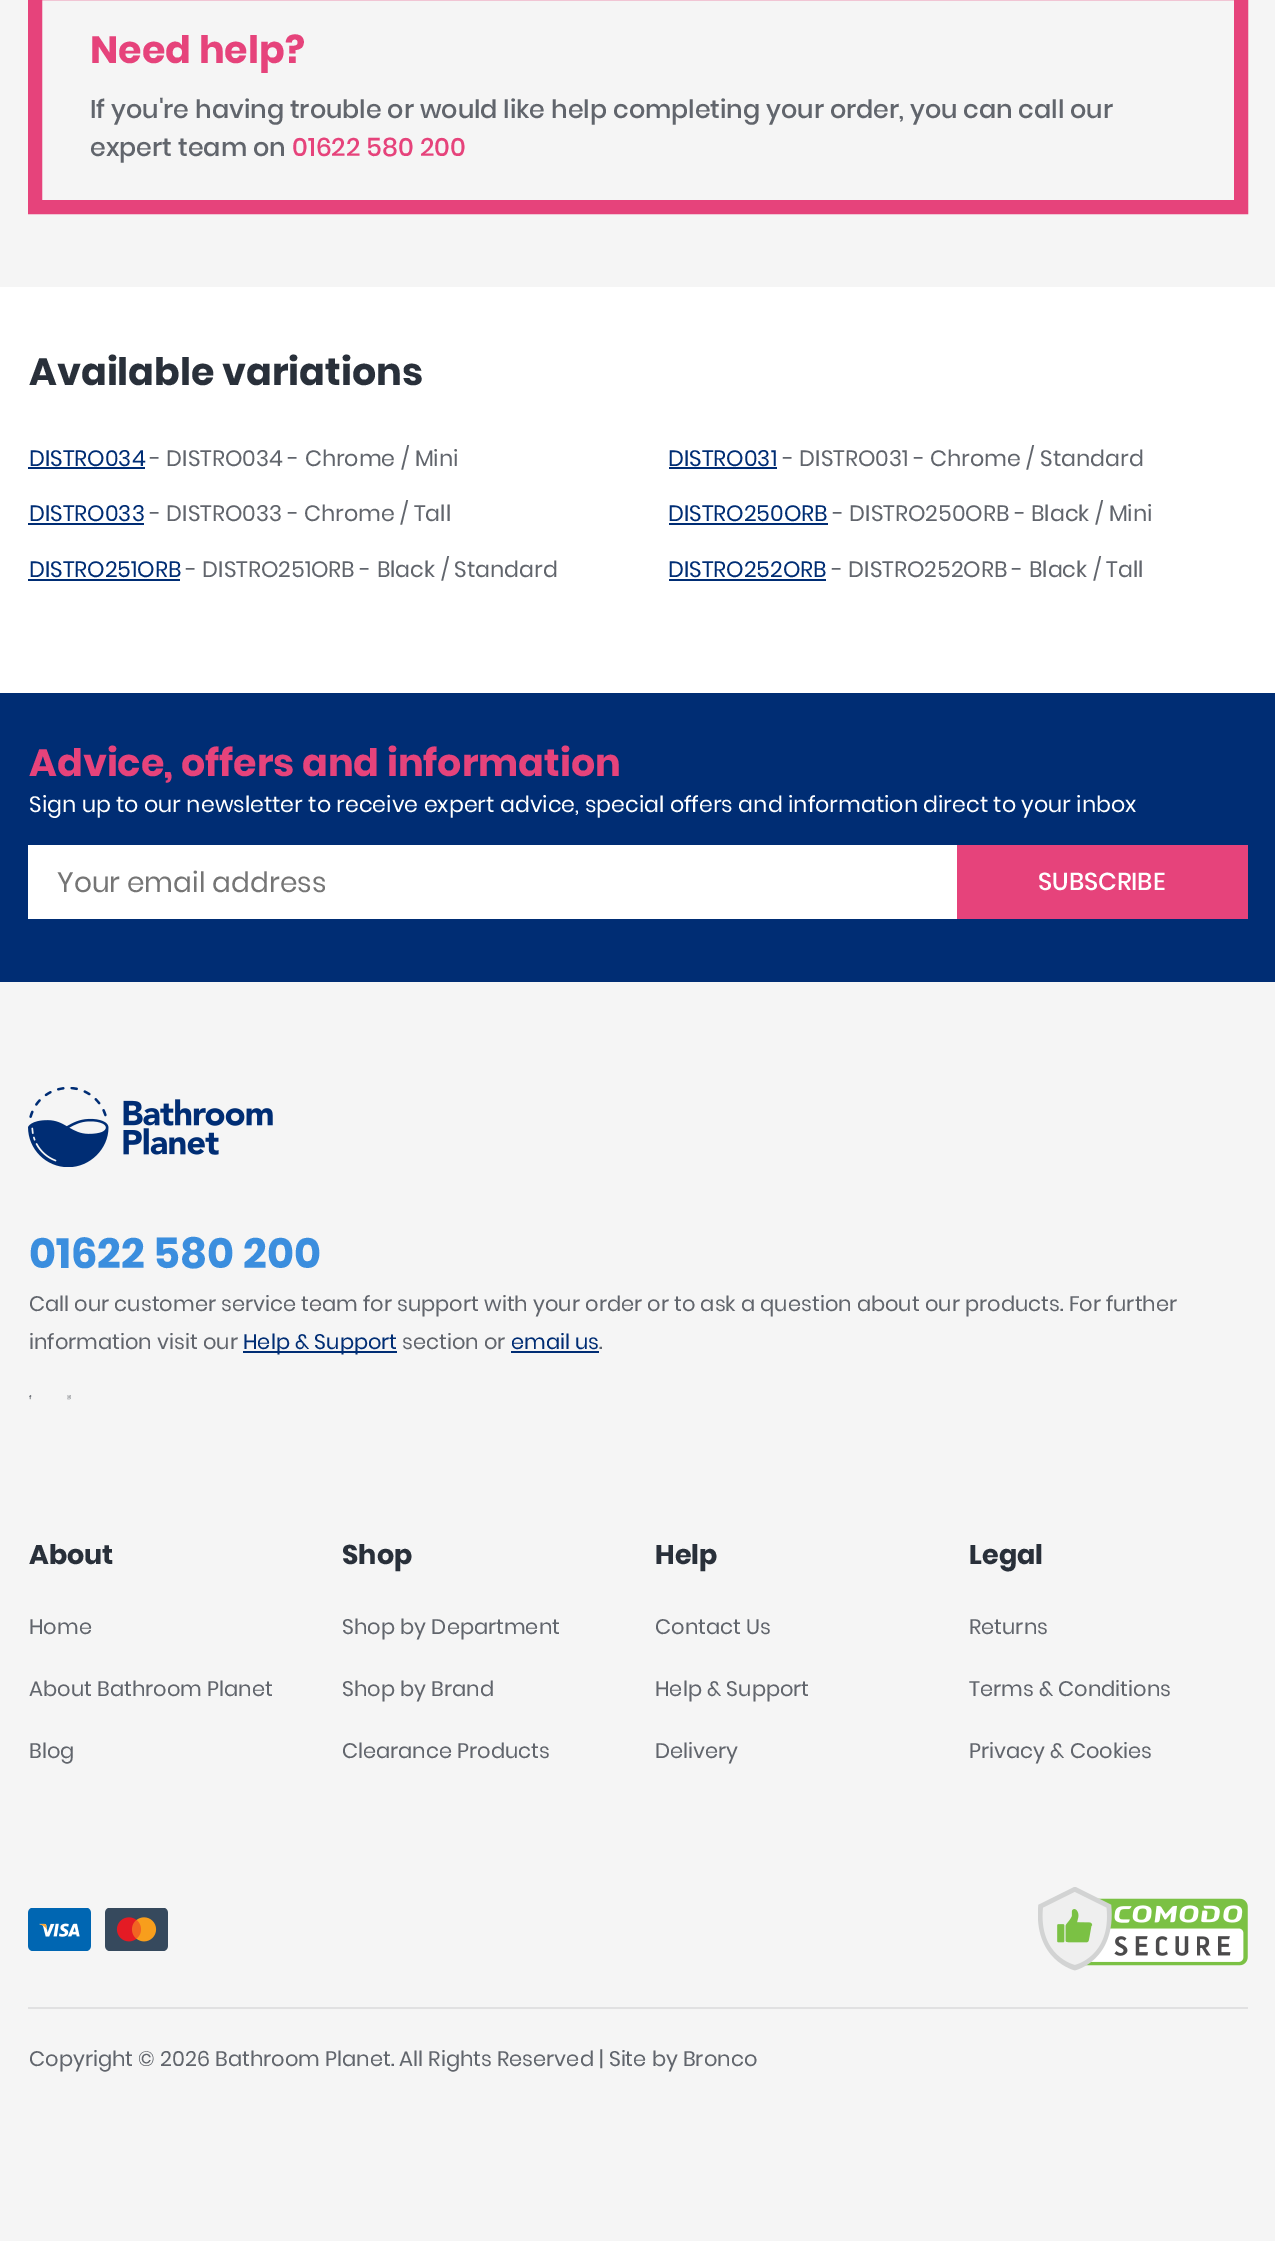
%!PS
<< /PageSize [1275 2241] >> setpagedevice
/w/setlinewidth load def
/C { dup -16 bitshift 255 div exch dup -8 bitshift 255 and 255 div exch 255 and 255 div setrgbcolor } def
/F { [ exch dup neg 0 0 3 -1 roll 0 0 ] selectfont } def
/T { moveto show } def
/R { rectfill } def
/I { 5 dict begin { /h /w /y /x /name } { exch def } forall
  gsave x y translate w h scale
  w h 8 [w 0 0 h 0 0] name (r) file false 3 colorimage grestore end } def
0 2241 translate 1 -1 scale
4 setmiterlimit
16#FFFFFF C
0 0 1275 2241 R
16#F5F5F5 C
0 0 1275 287 R
16#E6437B C
14 w
35 -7 1206 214 rectstroke
/Poppins-Bold 38 F
(Need help?) 90 63 T
/Poppins-Medium 25.35 F
16#61656C C
(If you're having trouble or would like help completing your order, you can call our) 90 118 T
(expert team on) 90 156 T
16#E6437B C
(01622 580 200) 292 156 T
/Poppins-Bold 38 F
16#29303A C
(Available variations) 29 385 T
/Poppins-Regular 22.2 F
16#002D74 C
(DISTRO034) 29 466 T
28 467 117 2 R
16#61656C C
(- DISTRO034 - Chrome / Mini) 150 466 T
16#002D74 C
(DISTRO031) 668 466 T
669 467 108 2 R
16#61656C C
(- DISTRO031 - Chrome / Standard) 783 466 T
16#002D74 C
(DISTRO033) 29 521 T
28 523 116 2 R
16#61656C C
(- DISTRO033 - Chrome / Tall) 150 521 T
16#002D74 C
(DISTRO250ORB) 668 521 T
669 523 159 2 R
16#61656C C
(- DISTRO250ORB - Black / Mini) 833 521 T
16#002D74 C
(DISTRO251ORB) 29 577 T
28 579 152 2 R
16#61656C C
(- DISTRO251ORB - Black / Standard) 186 577 T
16#002D74 C
(DISTRO252ORB) 668 577 T
669 579 157 2 R
16#61656C C
(- DISTRO252ORB - Black / Tall) 832 577 T
16#002D74 C
0 693 1275 289 R
/Poppins-Bold 38 F
16#E6437B C
(Advice, offers and information) 29 776 T
/Poppins-Regular 22.2 F
16#FFFFFF C
(Sign up to our newsletter to receive expert advice, special offers and information direct to your inbox) 29 812 T
28 845 929 74 R
/Poppins-Regular 28 F
16#757575 C
(Your email address) 57 892 T
16#E6437B C
957 845 291 74 R
/Poppins-Medium 24.5 F
16#FFFFFF C
(SUBSCRIBE) 1038 890 T
16#F5F5F5 C
0 982 1275 1259 R
(1.rgb) 28 1087 245 80 I
/Poppins-Bold 42 F
16#3B8EDE C
(01622 580 200) 29 1268 T
/Poppins-Regular 21 F
16#61656C C
(Call our customer service team for support with your order or to ask a question about our products. For further) 29 1311 T
(information visit our) 29 1349 T
16#002D74 C
243 1351 154 2 R
(Help & Support) 243 1349 T
16#61656C C
(section or) 402 1349 T
16#002D74 C
(email us) 511 1349 T
511 1351 88 2 R
16#61656C C
(.) 599 1349 T
(2.rgb) 29 1395 3 5 I
(3.rgb) 67 1395 4 5 I
/Poppins-Bold 27 F
16#29303A C
(About) 29 1564 T
/Poppins-Regular 21 F
16#61656C C
(Home) 29 1634 T
(About Bathroom Planet) 29 1696 T
(Blog) 29 1758 T
/Poppins-Bold 27 F
16#29303A C
(Shop) 342 1564 T
/Poppins-Regular 21 F
16#61656C C
(Shop by Department) 342 1634 T
(Shop by Brand) 342 1696 T
(Clearance Products) 342 1758 T
/Poppins-Bold 27 F
16#29303A C
(Help) 655 1564 T
/Poppins-Regular 21 F
16#61656C C
(Contact Us) 655 1634 T
(Help & Support) 655 1696 T
(Delivery) 655 1758 T
/Poppins-Bold 27 F
16#29303A C
(Legal) 969 1564 T
/Poppins-Regular 21 F
16#61656C C
(Returns) 969 1634 T
(Terms & Conditions) 969 1696 T
(Privacy & Cookies) 969 1758 T
(4.rgb) 28 1908 63 43 I
(5.rgb) 105 1908 63 43 I
(6.rgb) 1038 1887 210 84 I
16#E1E1E2 C
28 2007 1220 2 R
16#61656C C
(Copyright © 2026 Bathroom Planet. All Rights Reserved | Site by Bronco) 29 2066 T
showpage
